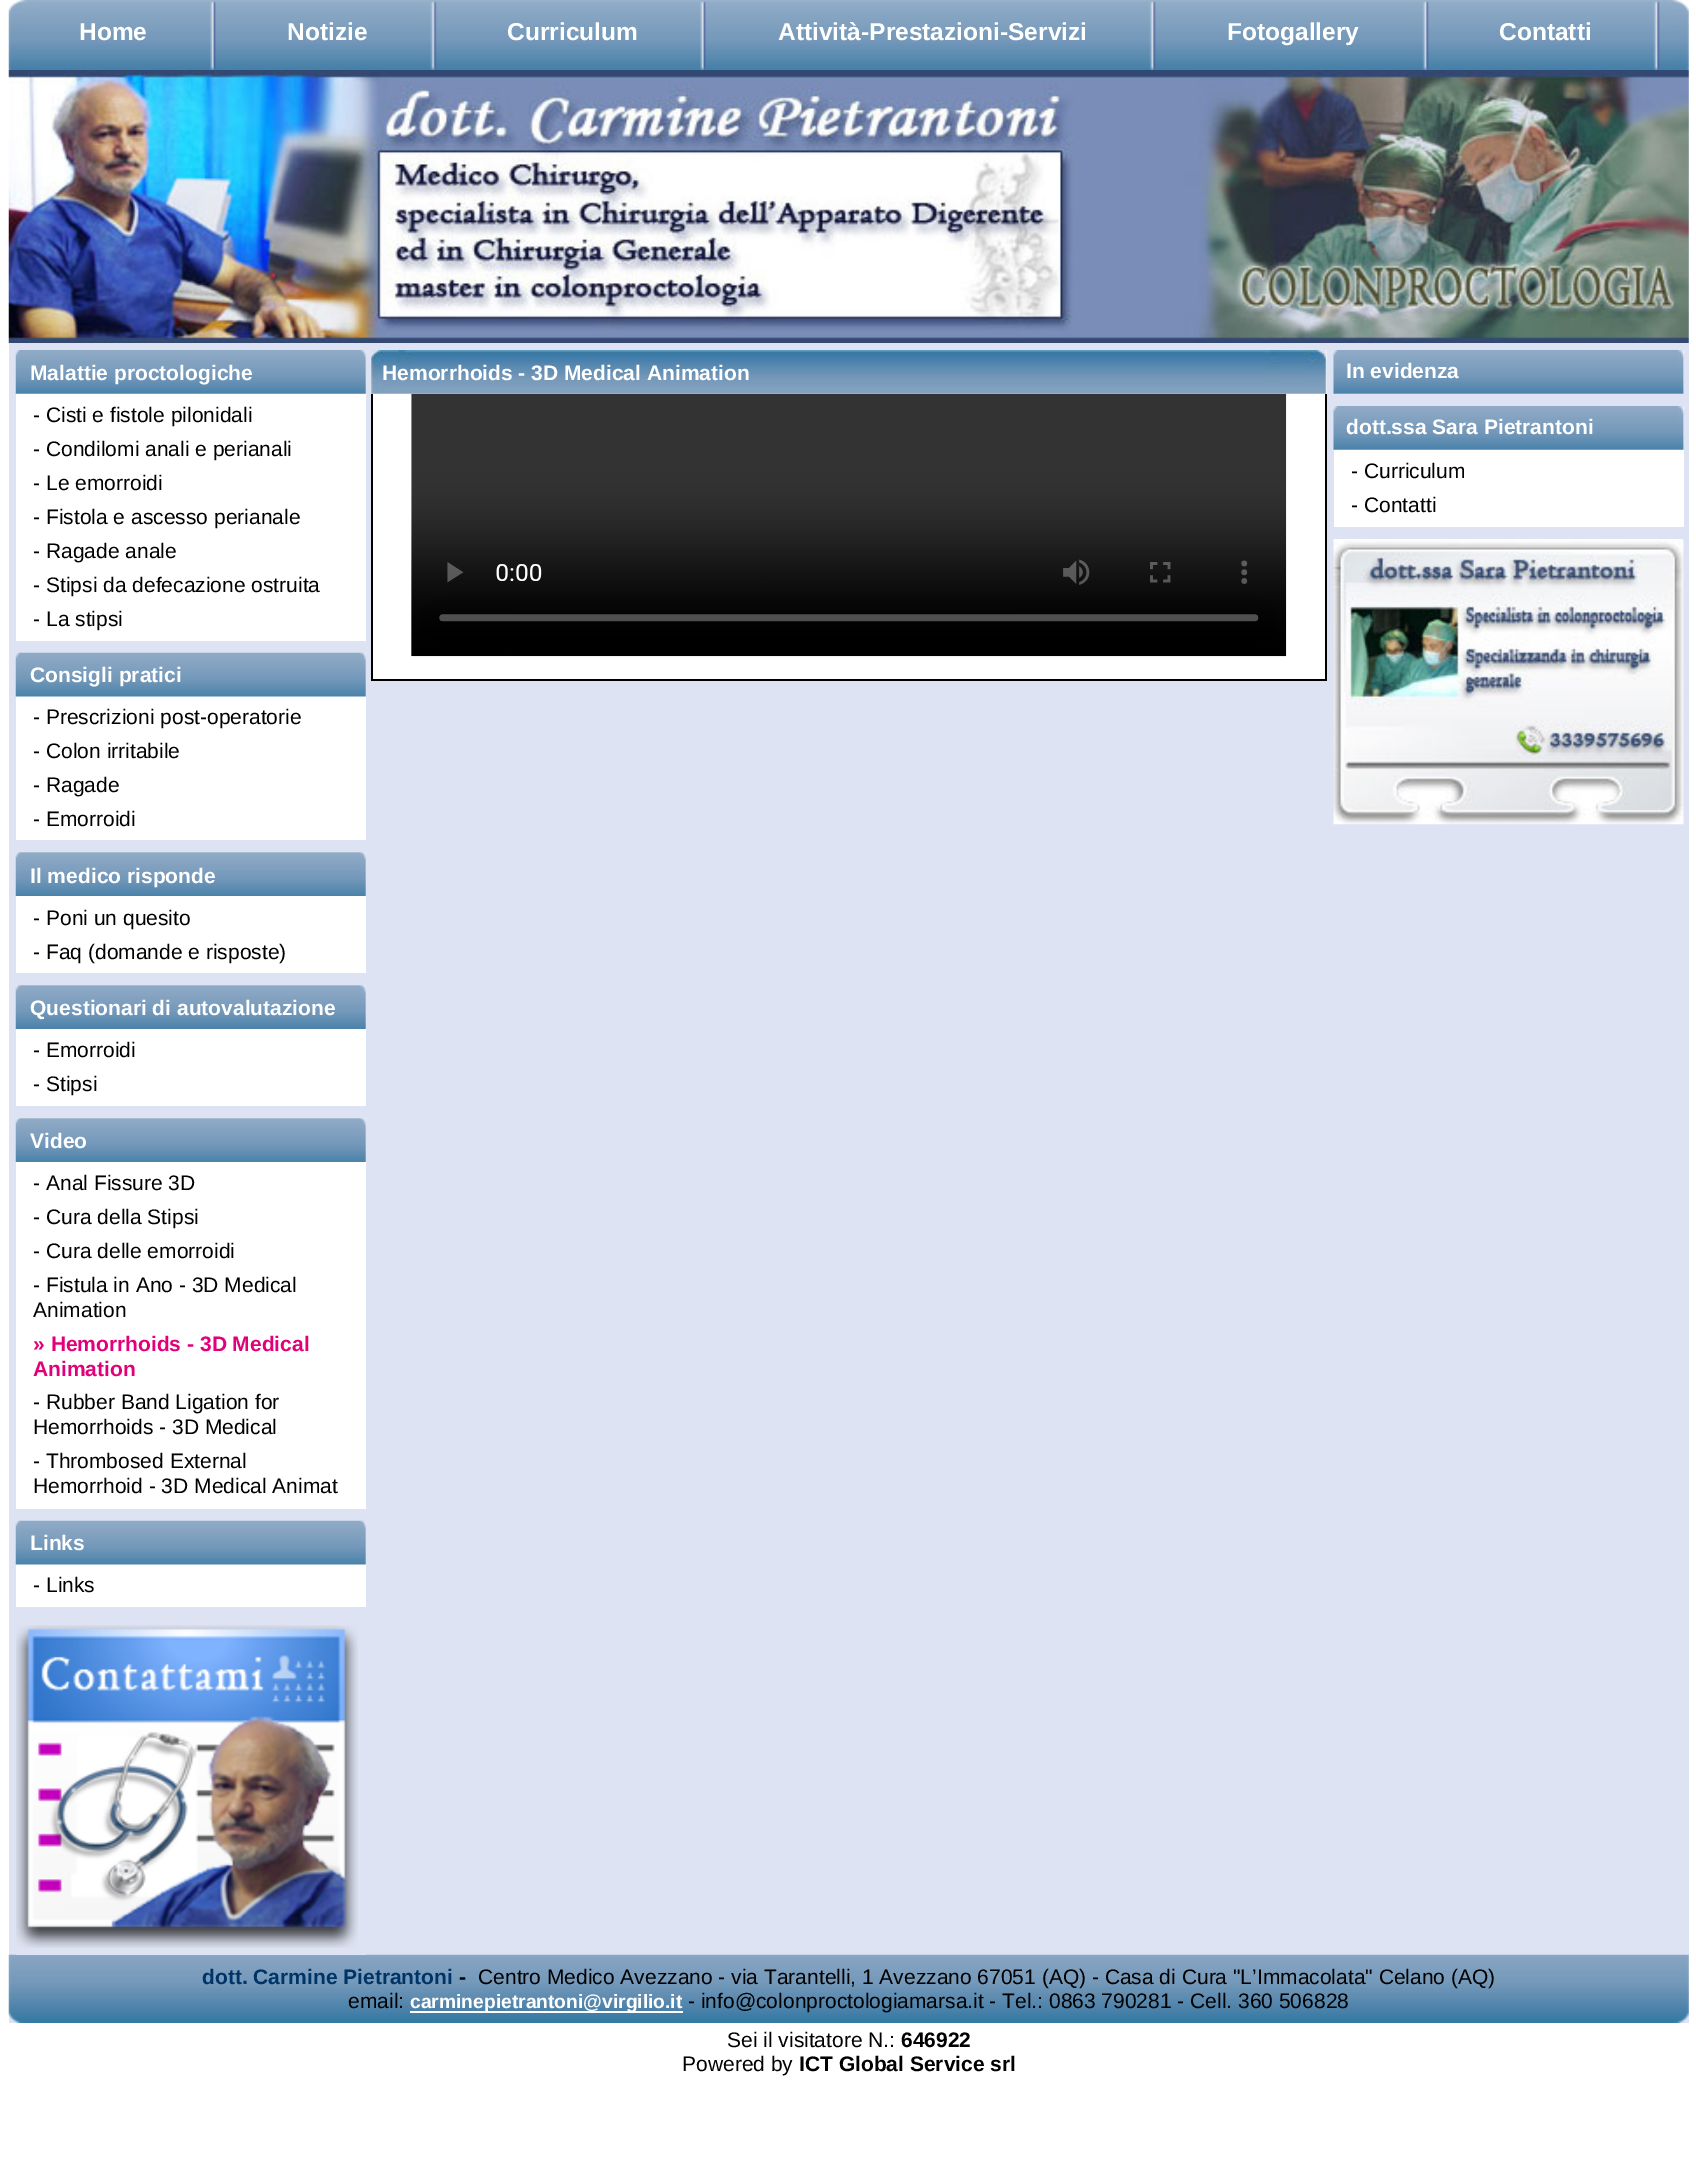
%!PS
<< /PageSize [1696 2184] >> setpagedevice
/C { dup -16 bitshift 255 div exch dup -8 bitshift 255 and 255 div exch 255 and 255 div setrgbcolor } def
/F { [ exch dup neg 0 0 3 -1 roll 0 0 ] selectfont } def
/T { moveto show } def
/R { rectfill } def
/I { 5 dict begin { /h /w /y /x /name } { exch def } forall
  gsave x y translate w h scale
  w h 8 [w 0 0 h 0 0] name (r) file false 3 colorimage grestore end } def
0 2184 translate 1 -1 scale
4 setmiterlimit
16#FFFFFF C
0 0 1696 2184 R
16#DDE3F2 C
9 0 1680 2023 R
(1.rgb) 8 0 1681 70 I
(2.rgb) 210 1 6 69 I
/LiberationSans-Bold 24.5 F
16#FFFFFF C
(Home) 79 40 T
(3.rgb) 430 1 7 69 I
(Notizie) 287 40 T
(2.rgb) 700 1 6 69 I
(Curriculum) 507 40 T
(4.rgb) 1149 1 7 69 I
(Attività-Prestazioni-Servizi) 778 40 T
(5.rgb) 1422 1 7 69 I
(Fotogallery) 1227 40 T
(4.rgb) 1653 1 7 69 I
(Contatti) 1499 40 T
(6.rgb) 8 70 1681 273 I
(15.rgb) 8 1954 1681 69 I
16#DDE3F2 C
16 1954 350 1 R
16#FFFFFF C
16 350 350 291 R
(7.rgb) 15 350 351 44 I
/LiberationSans-Bold 21 F
(Malattie proctologiche) 30 380 T
/LiberationSans-Regular 21 F
16#000000 C
(- Cisti e fistole pilonidali) 33 422 T
(- Condilomi anali e perianali) 33 456 T
(- Le emorroidi) 33 490 T
(- Fistola e ascesso perianale) 33 524 T
(- Ragade anale) 33 558 T
(- Stipsi da defecazione ostruita) 33 592 T
(- La stipsi) 33 626 T
16#FFFFFF C
16 653 350 187 R
(8.rgb) 15 652 351 45 I
/LiberationSans-Bold 21 F
(Consigli pratici) 30 682 T
/LiberationSans-Regular 21 F
16#000000 C
(- Prescrizioni post-operatorie) 33 724 T
(- Colon irritabile) 33 758 T
(- Ragade) 33 792 T
(- Emorroidi) 33 826 T
16#FFFFFF C
16 852 350 121 R
(9.rgb) 15 852 351 44 I
/LiberationSans-Bold 21 F
(Il medico risponde) 30 883 T
/LiberationSans-Regular 21 F
16#000000 C
(- Poni un quesito) 33 925 T
(- Faq \(domande e risposte\)) 33 959 T
16#FFFFFF C
16 985 350 121 R
(9.rgb) 15 985 351 44 I
/LiberationSans-Bold 21 F
(Questionari di autovalutazione) 30 1015 T
/LiberationSans-Regular 21 F
16#000000 C
(- Emorroidi) 33 1057 T
(- Stipsi) 33 1091 T
16#FFFFFF C
16 1118 350 391 R
(9.rgb) 15 1118 351 44 I
/LiberationSans-Bold 21 F
(Video) 30 1148 T
/LiberationSans-Regular 21 F
16#000000 C
(- Anal Fissure 3D) 33 1190 T
(- Cura della Stipsi) 33 1224 T
(- Cura delle emorroidi) 33 1258 T
(- Fistula in Ano - 3D Medical) 33 1292 T
(Animation) 33 1317 T
/LiberationSans-Bold 21 F
16#E2007A C
(» Hemorrhoids - 3D Medical) 33 1351 T
(Animation) 33 1376 T
/LiberationSans-Regular 21 F
16#000000 C
(- Rubber Band Ligation for) 33 1409 T
(Hemorrhoids - 3D Medical) 33 1434 T
(- Thrombosed External) 33 1468 T
(Hemorrhoid - 3D Medical Animat) 33 1493 T
16#FFFFFF C
16 1521 350 86 R
(8.rgb) 15 1520 351 45 I
/LiberationSans-Bold 21 F
(Links) 30 1550 T
/LiberationSans-Regular 21 F
16#000000 C
(- Links) 33 1592 T
(10.rgb) 16 1625 342 323 I
16#FFFFFF C
371 350 956 44 R
(11.rgb) 371 350 956 44 I
/LiberationSans-Bold 21 F
(Hemorrhoids - 3D Medical Animation) 382 380 T
373 394 952 285 R
16#000000 C
1325 394 2 287 R
371 679 956 2 R
371 394 2 287 R
(12.rgb) 411 393 876 264 I
16#FFFFFF C
1334 350 350 44 R
(13.rgb) 1333 350 351 44 I
(In evidenza) 1346 378 T
1334 406 350 121 R
(13.rgb) 1333 406 351 44 I
(dott.ssa Sara Pietrantoni) 1346 434 T
/LiberationSans-Regular 21 F
16#000000 C
(- Curriculum) 1351 478 T
(- Contatti) 1351 512 T
(14.rgb) 1333 539 351 286 I
/LiberationSans-Bold 21 F
16#003366 C
(dott. Carmine Pietrantoni) 202 1984 T
16#000000 C
(-) 459 1984 T
/LiberationSans-Regular 21 F
(Centro Medico Avezzano - via Tarantelli, 1 Avezzano 67051 \(AQ\) - Casa di Cura "L’Immacolata" Celano \(AQ\)) 478 1984 T
(email:) 348 2008 T
16#FFFFFF C
410 2011 273 2 R
/LiberationSans-Bold 19.25 F
(carminepietrantoni@virgilio.it) 410 2008 T
/LiberationSans-Regular 21 F
16#000000 C
(- info@colonproctologiamarsa.it - Tel.: 0863 790281 - Cell. 360 506828) 688 2008 T
(Sei il visitatore N.:) 727 2047 T
/LiberationSans-Bold 21 F
(646922) 901 2047 T
/LiberationSans-Regular 21 F
(Powered by) 682 2071 T
/LiberationSans-Bold 21 F
(ICT Global Service srl) 799 2071 T
showpage
